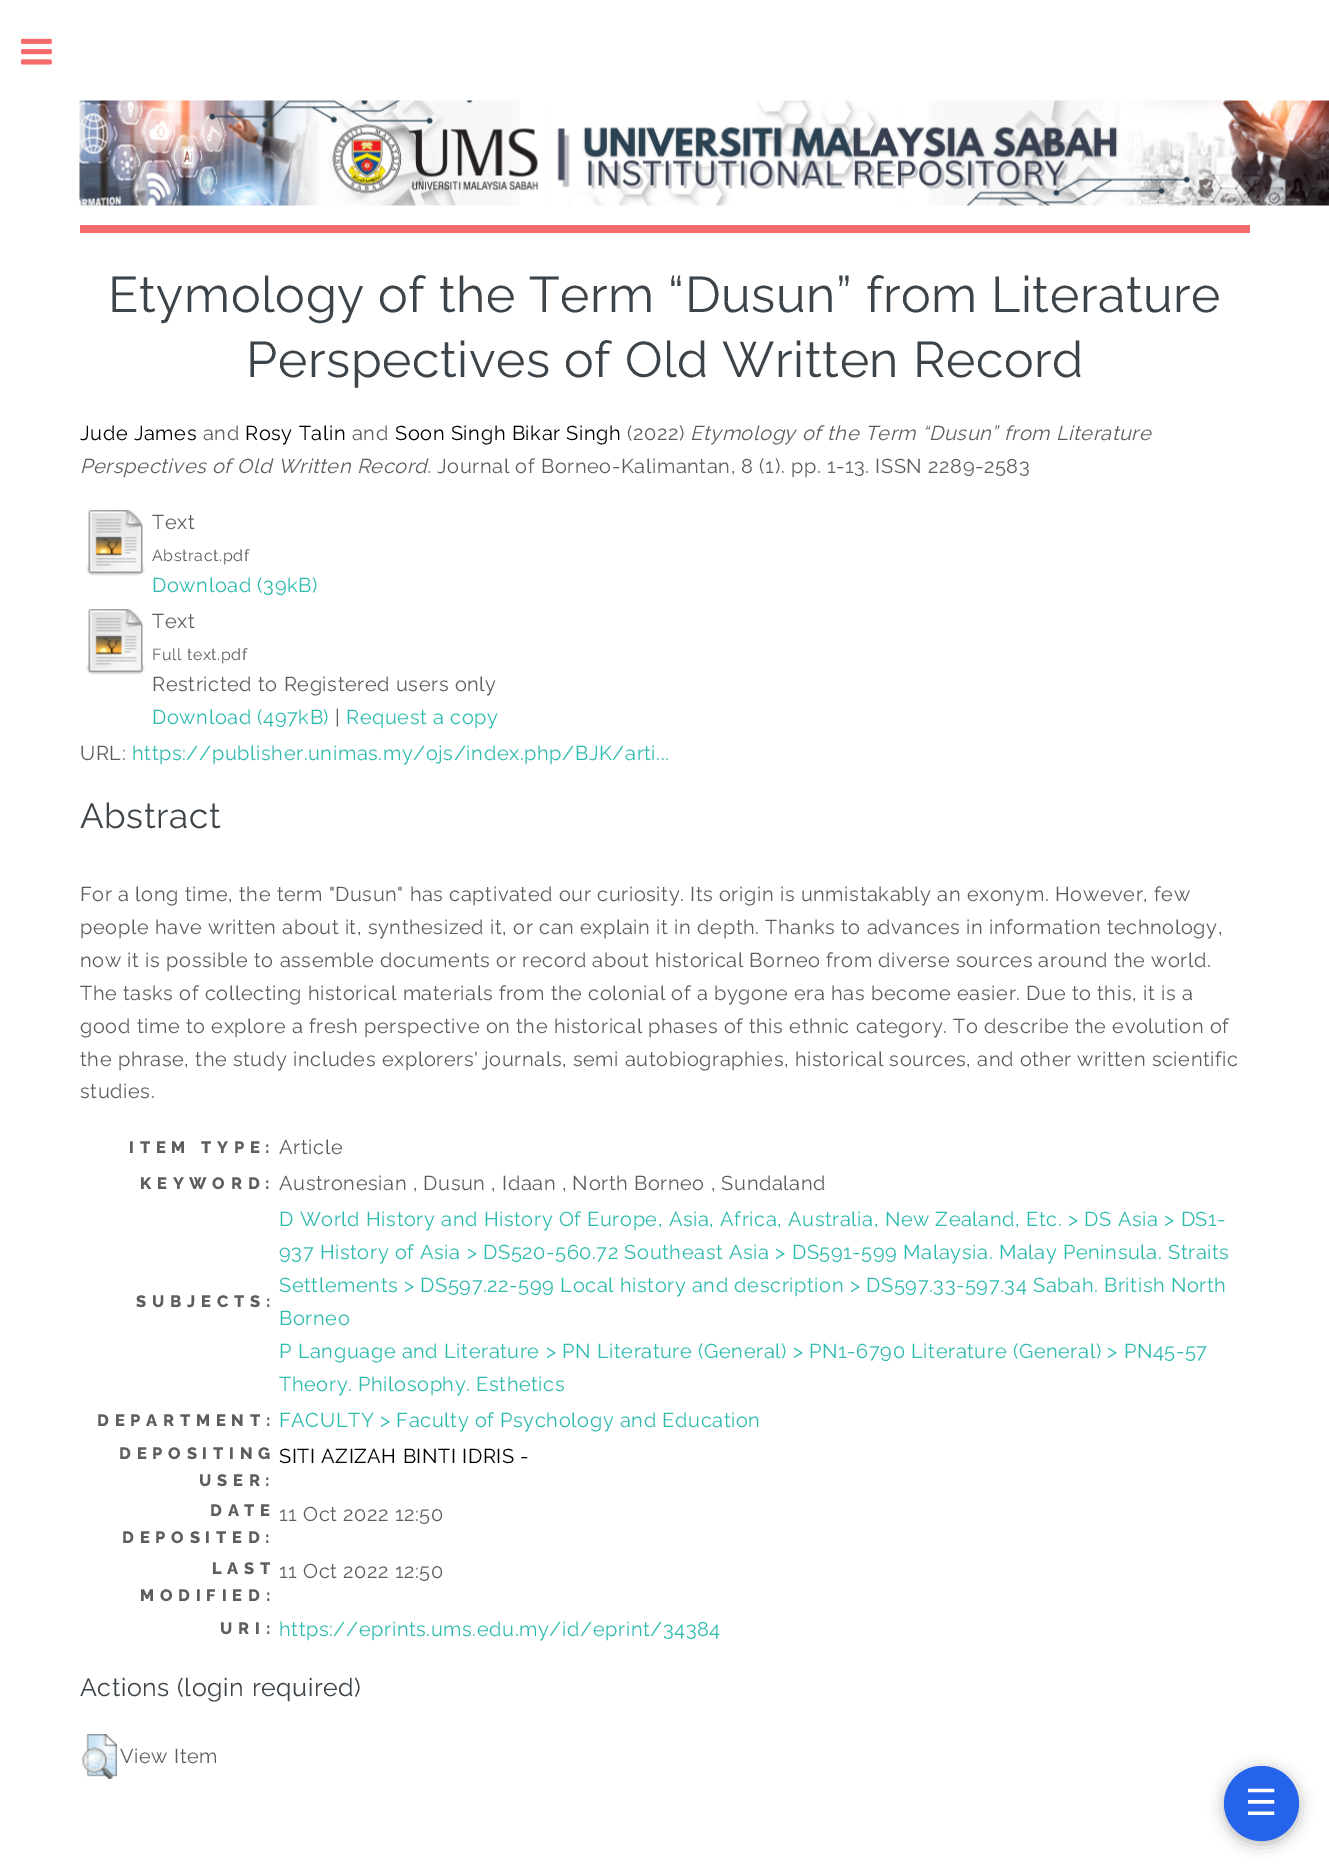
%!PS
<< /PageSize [1329 1870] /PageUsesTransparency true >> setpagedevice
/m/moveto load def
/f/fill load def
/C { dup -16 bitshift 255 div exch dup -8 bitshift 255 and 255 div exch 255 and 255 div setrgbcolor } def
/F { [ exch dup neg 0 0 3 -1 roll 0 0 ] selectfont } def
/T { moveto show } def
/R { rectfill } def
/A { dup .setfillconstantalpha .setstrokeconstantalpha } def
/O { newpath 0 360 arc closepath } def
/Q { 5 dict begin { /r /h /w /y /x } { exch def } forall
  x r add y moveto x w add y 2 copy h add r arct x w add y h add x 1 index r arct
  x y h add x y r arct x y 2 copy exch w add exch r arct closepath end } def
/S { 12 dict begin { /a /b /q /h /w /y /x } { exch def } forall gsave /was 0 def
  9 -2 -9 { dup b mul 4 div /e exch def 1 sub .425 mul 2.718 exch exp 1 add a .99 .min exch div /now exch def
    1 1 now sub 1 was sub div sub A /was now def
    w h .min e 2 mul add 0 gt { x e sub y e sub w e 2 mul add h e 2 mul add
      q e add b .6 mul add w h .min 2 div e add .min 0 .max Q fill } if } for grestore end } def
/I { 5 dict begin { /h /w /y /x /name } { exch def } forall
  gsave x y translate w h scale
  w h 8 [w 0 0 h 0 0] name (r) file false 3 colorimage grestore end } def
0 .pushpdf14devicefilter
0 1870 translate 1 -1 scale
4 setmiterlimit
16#FFFFFF C
0 0 1329 1870 R
(1.rgb) 21 38 31 27 I
16#F56A6A C
80 225 1170 8 R
(2.rgb) 79 100 1250 106 I
/Raleway-Regular 50 F
16#3D4449 C
108 312 m .6 0 (Etymology of the Term “Dusun” from Literature) ashow
246 377 m .6 0 (Perspectives of Old Written Record) ashow
/Raleway-Regular 20 F
16#000000 C
80 440 m .6 0 (Jude James) ashow
16#5D5D5D C
203 440 m .6 0 (and) ashow
16#000000 C
245 440 m .6 0 (Rosy Talin) ashow
16#5D5D5D C
352 440 m .6 0 (and) ashow
16#000000 C
395 440 m .6 0 (Soon Singh Bikar Singh) ashow
16#5D5D5D C
627 440 m .6 0 (\(2022\)) ashow
/Raleway-Italic 20 F
690 440 m .6 0 (Etymology of the Term “Dusun” from Literature) ashow
80 473 m .6 0 (Perspectives of Old Written Record.) ashow
/Raleway-Regular 20 F
437 473 m .6 0 (Journal of Borneo-Kalimantan, 8 \(1\). pp. 1-13. ISSN 2289-2583) ashow
(3.rgb) 86 510 59 66 I
152 529 m .6 0 (Text) ashow
/Raleway-Regular 16 F
152 561 m .6 0 (Abstract.pdf) ashow
/Raleway-Regular 20 F
16#2EBAAE C
152 592 m .6 0 (Download \(39kB\)) ashow
(3.rgb) 86 609 59 66 I
16#5D5D5D C
152 628 m .6 0 (Text) ashow
/Raleway-Regular 16 F
152 660 m .6 0 (Full text.pdf) ashow
/Raleway-Regular 20 F
152 691 m .6 0 (Restricted to Registered users only) ashow
16#2EBAAE C
152 724 m .6 0 (Download \(497kB\)) ashow
16#5D5D5D C
335 724 m .6 0 (|) ashow
16#2EBAAE C
346 724 m .6 0 (Request a copy) ashow
16#5D5D5D C
80 760 m .6 0 (URL:) ashow
16#2EBAAE C
132 760 m .6 0 (https://publisher.unimas.my/ojs/index.php/BJK/arti...) ashow
/Raleway-Regular 35 F
16#3D4449 C
80 828 m .6 0 (Abstract) ashow
/Raleway-Regular 20 F
16#5D5D5D C
80 901 m .6 0 (For a long time, the term "Dusun" has captivated our curiosity. Its origin is unmistakably an exonym. However, few) ashow
80 934 m .6 0 (people have written about it, synthesized it, or can explain it in depth. Thanks to advances in information technology,) ashow
80 967 m .6 0 (now it is possible to assemble documents or record about historical Borneo from diverse sources around the world.) ashow
80 1000 m .6 0 (The tasks of collecting historical materials from the colonial of a bygone era has become easier. Due to this, it is a) ashow
80 1033 m .6 0 (good time to explore a fresh perspective on the historical phases of this ethnic category. To describe the evolution of) ashow
80 1066 m .6 0 (the phrase, the study includes explorers' journals, semi autobiographies, historical sources, and other written scientific) ashow
80 1098 m .6 0 (studies.) ashow
/Raleway-ExtraBold 16.5 F
129 1153 m 5.75 0 (ITEM TYPE:) ashow
/Raleway-Regular 20 F
279 1154 m .6 0 (Article) ashow
/Raleway-ExtraBold 16.5 F
140 1189 m 5.75 0 (KEYWORD:) ashow
/Raleway-Regular 20 F
279 1190 m .6 0 (Austronesian , Dusun , Idaan , North Borneo , Sundaland) ashow
/Raleway-ExtraBold 16.5 F
136 1307 m 5.75 0 (SUBJECTS:) ashow
/Raleway-Regular 20 F
16#2EBAAE C
279 1226 m .6 0 (D World History and History Of Europe, Asia, Africa, Australia, New Zealand, Etc. > DS Asia > DS1-) ashow
279 1259 m .6 0 (937 History of Asia > DS520-560.72 Southeast Asia > DS591-599 Malaysia. Malay Peninsula. Straits) ashow
279 1292 m .6 0 (Settlements > DS597.22-599 Local history and description > DS597.33-597.34 Sabah. British North) ashow
279 1325 m .6 0 (Borneo) ashow
279 1358 m .6 0 (P Language and Literature > PN Literature \(General\) > PN1-6790 Literature \(General\) > PN45-57) ashow
279 1391 m .6 0 (Theory. Philosophy. Esthetics) ashow
/Raleway-ExtraBold 16.5 F
16#5D5D5D C
97 1426 m 5.75 0 (DEPARTMENT:) ashow
/Raleway-Regular 20 F
16#2EBAAE C
279 1427 m .6 0 (FACULTY > Faculty of Psychology and Education) ashow
/Raleway-ExtraBold 16.5 F
16#5D5D5D C
119 1459 m 5.75 0 (DEPOSITING) ashow
199 1486 m 5.75 0 (USER:) ashow
/Raleway-Regular 20 F
16#000000 C
279 1463 m .6 0 (SITI AZIZAH BINTI IDRIS -) ashow
/Raleway-ExtraBold 16.5 F
16#5D5D5D C
210 1516 m 5.75 0 (DATE) ashow
122 1543 m 5.75 0 (DEPOSITED:) ashow
/Raleway-Regular 20 F
279 1521 m .6 0 (11 Oct 2022 12:50) ashow
/Raleway-ExtraBold 16.5 F
212 1574 m 5.75 0 (LAST) ashow
140 1601 m 5.75 0 (MODIFIED:) ashow
/Raleway-Regular 20 F
279 1578 m .6 0 (11 Oct 2022 12:50) ashow
/Raleway-ExtraBold 16.5 F
220 1634 m 5.75 0 (URI:) ashow
/Raleway-Regular 20 F
16#2EBAAE C
279 1636 m .6 0 (https://eprints.ums.edu.my/id/eprint/34384) ashow
/Raleway-Regular 25 F
16#3D4449 C
80 1696 m .6 0 (Actions \(login required\)) ashow
(4.rgb) 82 1734 35 45 I
/Raleway-Regular 20 F
16#5D5D5D C
120 1763 m .6 0 (View Item) ashow
16#000000 C
1224 1769 75 75 37.5 7.5 .3 S
16#2563EB C
1261.5 1803.5 37.5 O f
/DejaVuSans-Regular 36 F
16#FFFFFF C
(☰) 1245 1815 T
.poppdf14devicefilter showpage
